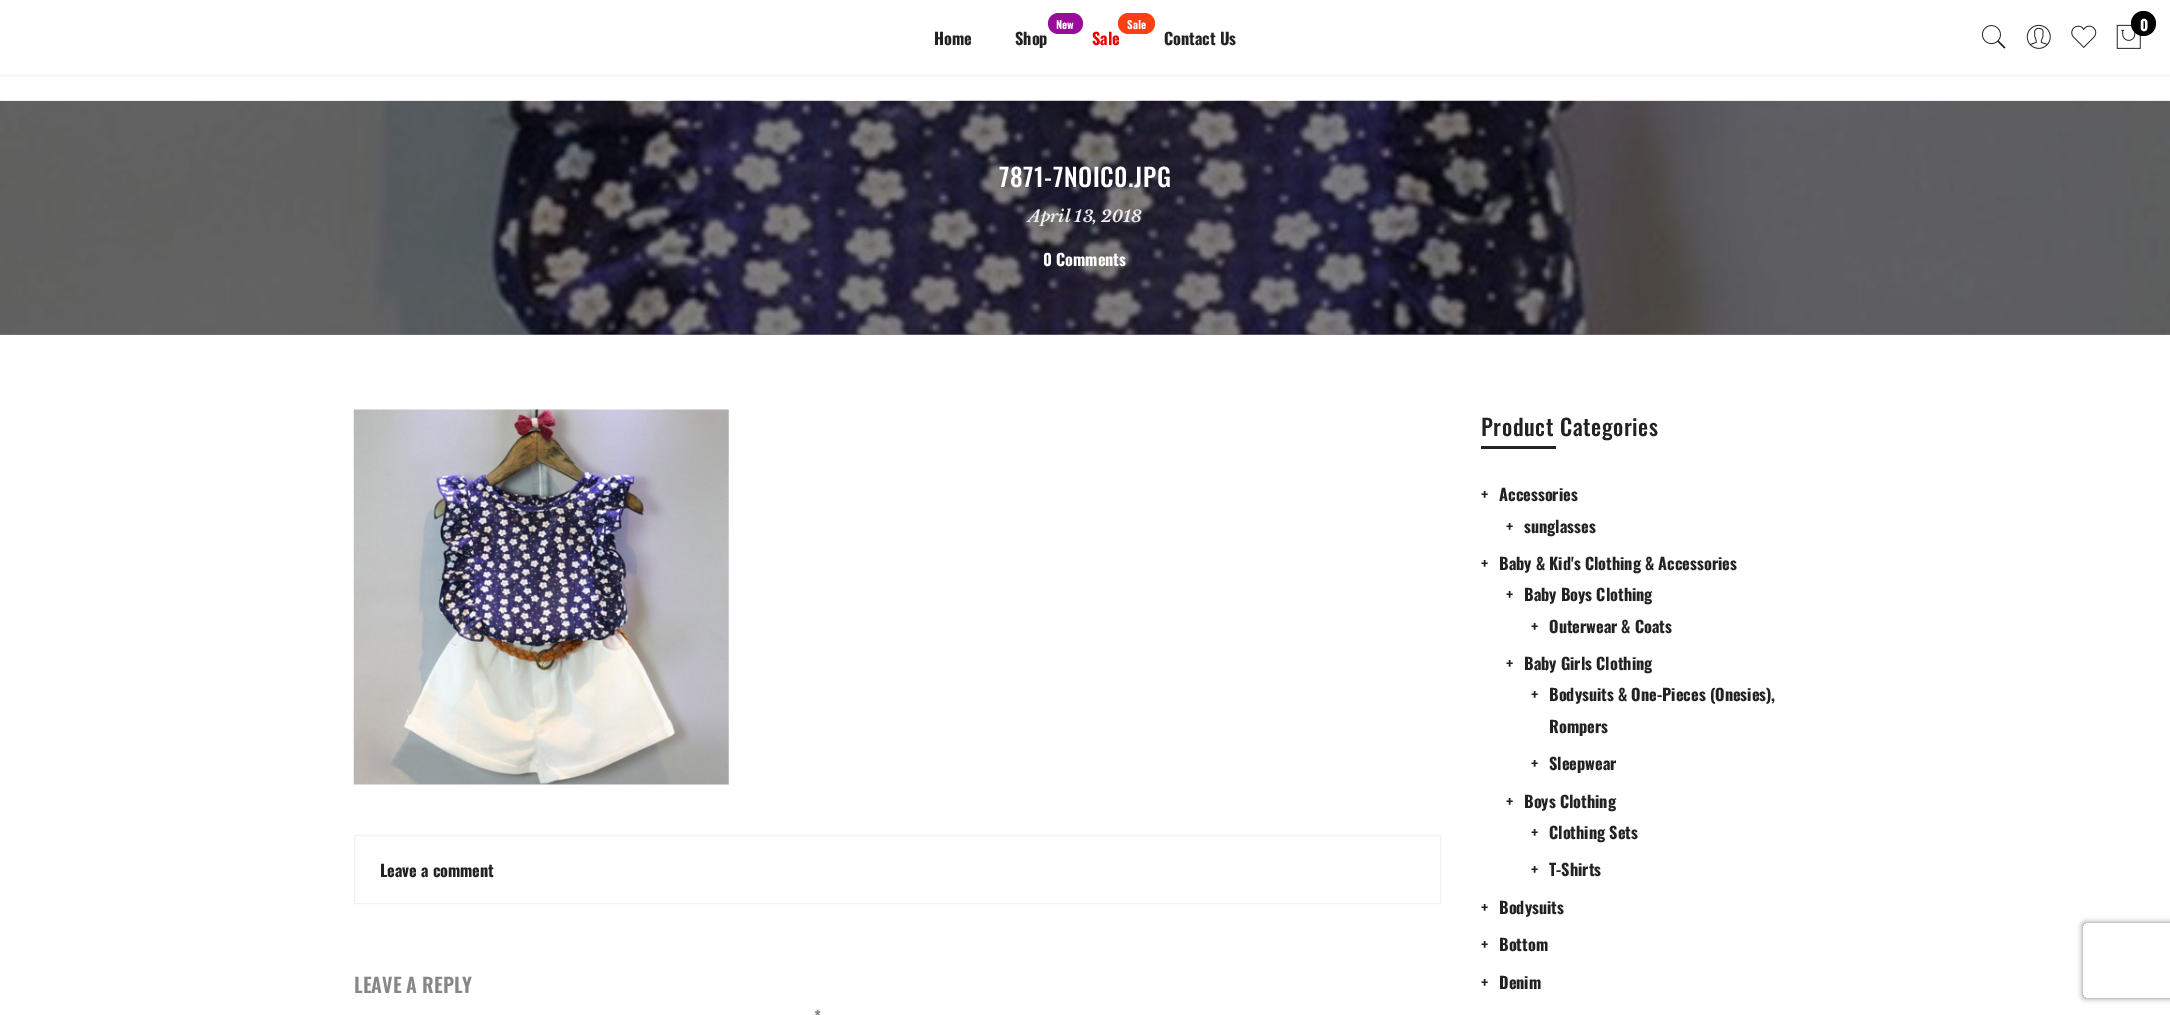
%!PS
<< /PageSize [2170 1015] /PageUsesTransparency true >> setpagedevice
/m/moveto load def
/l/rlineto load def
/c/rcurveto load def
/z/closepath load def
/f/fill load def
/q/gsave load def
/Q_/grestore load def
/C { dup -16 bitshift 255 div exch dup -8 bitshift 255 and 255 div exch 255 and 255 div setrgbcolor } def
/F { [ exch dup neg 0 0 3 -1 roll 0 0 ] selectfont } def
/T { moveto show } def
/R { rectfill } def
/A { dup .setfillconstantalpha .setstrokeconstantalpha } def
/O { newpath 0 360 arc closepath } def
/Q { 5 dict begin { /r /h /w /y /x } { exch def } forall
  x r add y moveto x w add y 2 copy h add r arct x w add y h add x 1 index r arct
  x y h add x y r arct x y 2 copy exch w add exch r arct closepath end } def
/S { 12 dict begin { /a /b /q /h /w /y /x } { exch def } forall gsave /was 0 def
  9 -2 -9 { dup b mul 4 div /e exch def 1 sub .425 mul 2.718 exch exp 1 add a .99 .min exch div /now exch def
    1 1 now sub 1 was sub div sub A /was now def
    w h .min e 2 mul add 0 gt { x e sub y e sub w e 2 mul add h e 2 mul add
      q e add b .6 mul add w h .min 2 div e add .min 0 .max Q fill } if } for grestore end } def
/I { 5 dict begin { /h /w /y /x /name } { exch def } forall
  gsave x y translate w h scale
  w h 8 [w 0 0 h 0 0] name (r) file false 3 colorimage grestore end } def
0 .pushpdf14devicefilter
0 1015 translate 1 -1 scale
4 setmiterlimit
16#FFFFFF C
0 0 2170 1015 R
16#808080 C
0 334 2170 1 R
q
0 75 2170 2 rectclip
16#000000 C
0 0 2170 75 0 2 .12 S
Q_
/Oswald-Bold 16.25 F
16#222222 C
(Home) 934 45 T
16#990C99 C
1048 13 35 21 10.5 Q f
/Oswald-Bold 11 F
16#FFFFFF C
(New) 1056 29 T
/Oswald-Bold 16.25 F
16#222222 C
(Shop) 1015 45 T
16#EC0101 C
(Sale) 1092 45 T
16#FF3E11 C
1118 13 37 21 10.5 Q f
/Oswald-Bold 11 F
16#FFFFFF C
(Sale) 1127 29 T
/Oswald-Bold 16.25 F
16#222222 C
(Contact Us) 1164 45 T
(1.rgb) 1982 25 24 24 I
(2.rgb) 2026 24 25 25 I
(3.rgb) 2071 25 26 23 I
(4.rgb) 2116 24 25 25 I
16#000000 C
2143.5 23.5 12.5 O f
/Oswald-Bold 15 F
16#FFFFFF C
(0) 2140 31 T
(5.rgb) 0 100 2170 235 I
/Oswald-Medium 25 F
999 187 m .6 0 (7871-7NOIC0.JPG) ashow
/LibreBaskerville-BoldItalic 16.25 F
16#EDEDED C
(April 13, 2018) 1028 222 T
/Oswald-Bold 16.25 F
16#FFFFFF C
(0 Comments) 1043 266 T
(6.rgb) 353 409 376 376 I
16#F1F1F1 C
354.5 835.5 1086 68 rectstroke
16#222222 C
(Leave a comment) 380 877 T
/Oswald-SemiBold 20 F
16#878787 C
(LEAVE A REPLY) 354 993 T
/Oswald-Bold 16.25 F
(*) 814 1023 T
/Oswald-Medium 22.5 F
16#222222 C
1481 436 m .6 0 (Product Categories) ashow
1481 446 75 3 R
/Oswald-Bold 16.25 F
(+) 1481 501 T
(Accessories) 1499 501 T
(+) 1506 533 T
(sunglasses) 1524 533 T
(+) 1481 570 T
(Baby & Kid's Clothing & Accessories) 1499 570 T
(+) 1506 601 T
(Baby Boys Clothing) 1524 601 T
(+) 1531 633 T
(Outerwear & Coats) 1549 633 T
(+) 1506 670 T
(Baby Girls Clothing) 1524 670 T
(+) 1531 701 T
(Bodysuits & One-Pieces \(Onesies\),) 1549 701 T
(Rompers) 1549 733 T
(+) 1531 770 T
(Sleepwear) 1549 770 T
(+) 1506 808 T
(Boys Clothing) 1524 808 T
(+) 1531 839 T
(Clothing Sets) 1549 839 T
(+) 1531 876 T
(T-Shirts) 1549 876 T
(+) 1481 914 T
(Bodysuits) 1499 914 T
(+) 1481 951 T
(Bottom) 1499 951 T
(+) 1481 989 T
(Denim) 1499 989 T
q
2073 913 m 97 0 l 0 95 l -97 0 l z 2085.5 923 m 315 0 l 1.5 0 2.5 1 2.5 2.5 c 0 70 l 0 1.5 -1 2.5 -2.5 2.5 c -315 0 l -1.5 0 -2.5 -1 -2.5 -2.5 c 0 -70 l 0 -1.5 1 -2.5 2.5 -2.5 c z eoclip newpath
16#808080 C
2083 923 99 75 2.5 3 1 S
Q_
.poppdf14devicefilter showpage
